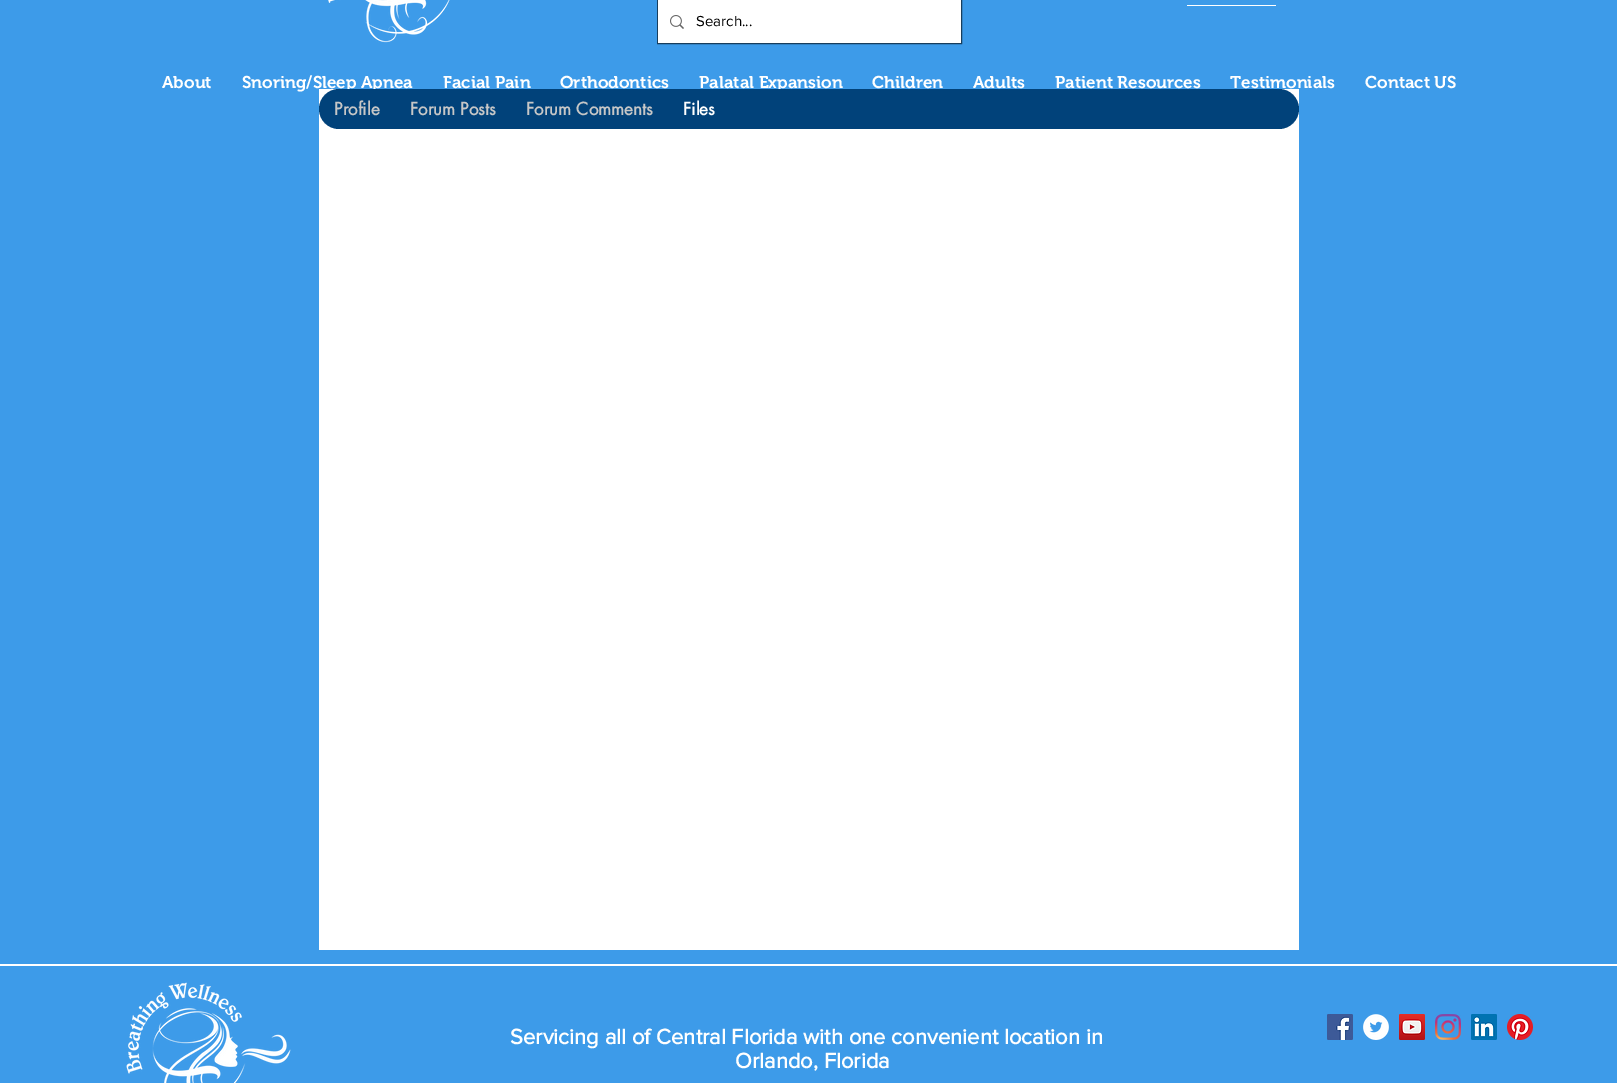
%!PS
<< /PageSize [1617 1083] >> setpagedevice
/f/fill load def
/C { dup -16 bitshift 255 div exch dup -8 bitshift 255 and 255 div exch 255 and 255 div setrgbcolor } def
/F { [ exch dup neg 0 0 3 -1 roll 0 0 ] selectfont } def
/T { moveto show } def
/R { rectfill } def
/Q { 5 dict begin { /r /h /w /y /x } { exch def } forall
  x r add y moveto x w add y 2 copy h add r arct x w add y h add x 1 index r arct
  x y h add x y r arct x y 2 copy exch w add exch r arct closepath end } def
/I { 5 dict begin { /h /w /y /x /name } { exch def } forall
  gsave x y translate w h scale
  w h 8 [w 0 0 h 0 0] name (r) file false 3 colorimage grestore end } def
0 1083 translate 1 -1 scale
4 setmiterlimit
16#3D9BE9 C
0 0 1617 1083 R
(1.rgb) 328 0 122 43 I
16#FFFFFF C
1187 5 89 1 R
16#183E5D C
657.5 -.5 304 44 rectstroke
16#FFFFFF C
658 0 303 43 R
(2.rgb) 670 15 14 14 I
/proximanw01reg-Regular 15 F
16#000000 C
(Search...) 696 26 T
/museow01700-SemiBold 17 F
16#FFFFFF C
(About) 162 88 T
(Snoring/Sleep Apnea) 242 88 T
(Facial Pain) 443 88 T
(Orthodontics) 560 88 T
(Palatal Expansion) 699 88 T
(Children) 872 88 T
(Adults) 973 88 T
(Patient Resources) 1055 88 T
(Testimonials) 1230 88 T
(Contact US) 1365 88 T
319 89 980 861 R
16#01427A C
319 89 980 40 20 Q f
/futura-Bold 17 F
16#C7C7C7 C
(Profile) 334 115 T
(Forum Posts) 410 115 T
(Forum Comments) 526 115 T
16#FFFFFF C
(Files) 683 115 T
0 964 1617 2 R
(3.rgb) 126 982 165 101 I
/proximanw01reg-Bold 22 F
(Servicing all of Central Florida with one convenient location in) 510 1044 T
(Orlando, Florida) 735 1068 T
(4.rgb) 1327 1014 26 26 I
(5.rgb) 1363 1014 26 26 I
(6.rgb) 1399 1014 26 26 I
(7.rgb) 1435 1014 26 26 I
(8.rgb) 1471 1014 26 26 I
(9.rgb) 1507 1014 26 26 I
showpage
